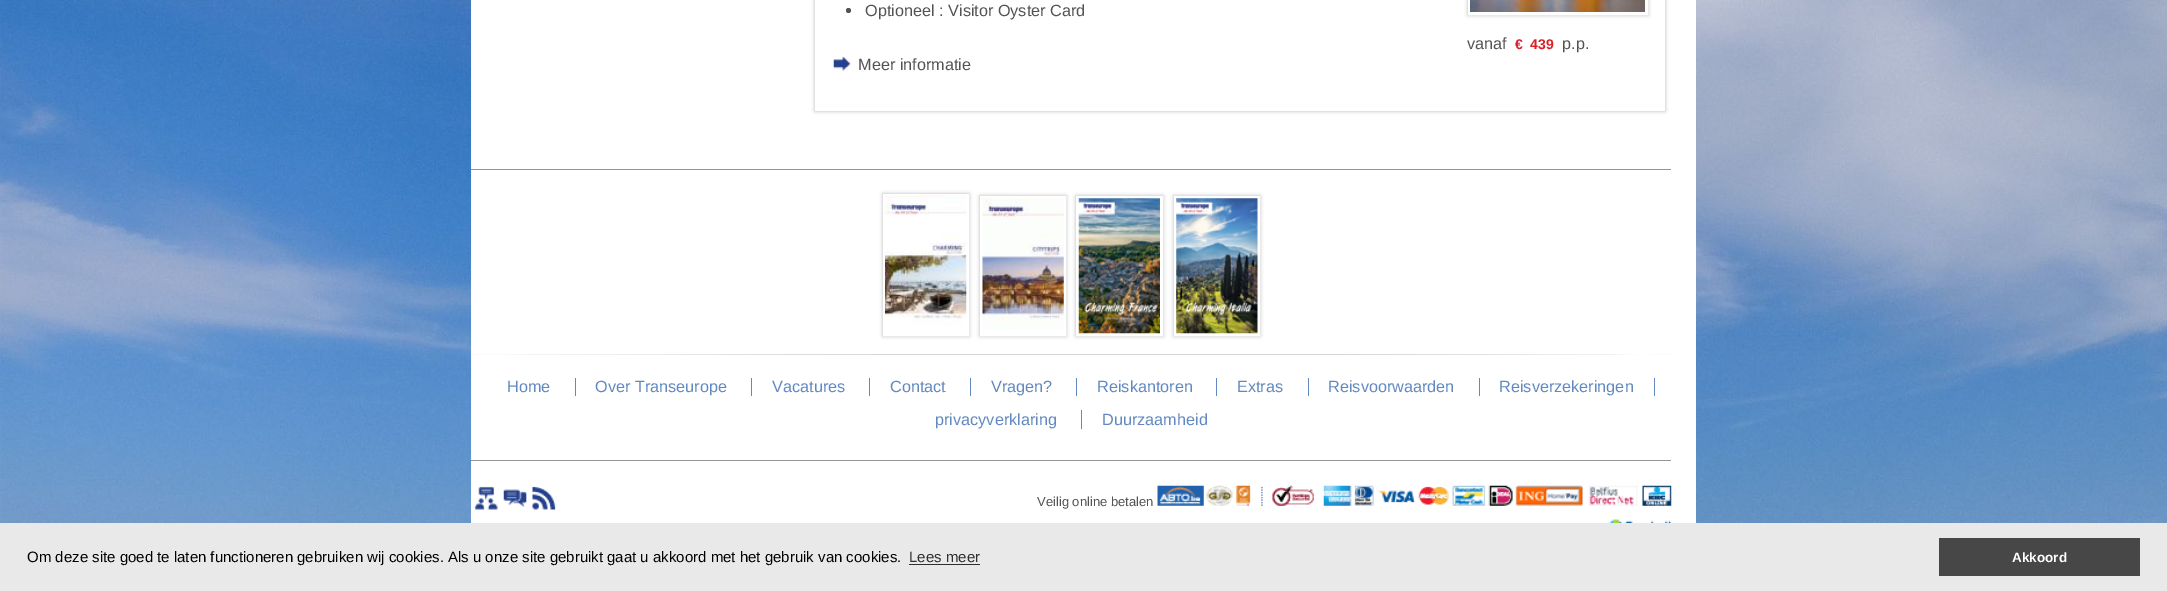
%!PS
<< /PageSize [2167 591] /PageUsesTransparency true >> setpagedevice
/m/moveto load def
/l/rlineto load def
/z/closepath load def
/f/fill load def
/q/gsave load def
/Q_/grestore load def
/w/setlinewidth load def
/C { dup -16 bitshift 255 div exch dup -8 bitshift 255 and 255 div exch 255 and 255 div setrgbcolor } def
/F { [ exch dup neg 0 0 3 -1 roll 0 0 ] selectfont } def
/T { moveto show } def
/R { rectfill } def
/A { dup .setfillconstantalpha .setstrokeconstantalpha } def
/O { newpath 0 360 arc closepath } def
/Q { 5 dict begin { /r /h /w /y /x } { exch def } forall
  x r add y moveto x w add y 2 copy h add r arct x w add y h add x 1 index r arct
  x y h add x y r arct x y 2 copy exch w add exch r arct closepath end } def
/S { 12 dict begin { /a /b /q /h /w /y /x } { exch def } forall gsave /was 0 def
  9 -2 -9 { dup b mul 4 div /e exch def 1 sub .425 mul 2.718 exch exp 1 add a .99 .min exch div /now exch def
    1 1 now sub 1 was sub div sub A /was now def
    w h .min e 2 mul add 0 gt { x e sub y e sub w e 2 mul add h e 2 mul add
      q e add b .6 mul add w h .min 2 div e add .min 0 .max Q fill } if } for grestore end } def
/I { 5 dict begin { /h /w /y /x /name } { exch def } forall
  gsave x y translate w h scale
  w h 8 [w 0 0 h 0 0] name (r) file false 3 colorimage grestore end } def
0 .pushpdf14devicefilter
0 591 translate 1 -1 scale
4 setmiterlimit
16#FFFFFF C
0 0 2167 591 R
(1.rgb) 0 0 2167 523 I
471 0 1225 523 R
q
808 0 m 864 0 l 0 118 l -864 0 l z 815 -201 m 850 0 l 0 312 l -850 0 l z eoclip newpath
16#000000 C
815 -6 850 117 0 2 .3 S
Q_
16#535353 C
848.5 10.5 2.5 O f
/LiberationSans-Regular 16.25 F
(Optioneel : Visitor Oyster Card) 865 16 T
(2.rgb) 833 56 18 15 I
(Meer informatie) 858 70 T
16#000000 C
1468 -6 180 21 0 2 .3 S
16#FFFFFF C
3 w
1469.5 -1.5 177 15 rectstroke
(3.rgb) 1470 0 175 12 I
16#535353 C
(vanaf) 1467 49 T
/LiberationSans-Bold 14 F
16#DB2128 C
(€) 1515 49 T
(439) 1530 49 T
/LiberationSans-Regular 16.25 F
16#535353 C
(p.p.) 1562 49 T
16#959595 C
471 169 1200 1 R
q
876 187 m 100 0 l 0 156 l -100 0 l z 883 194 m 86 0 l 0 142 l -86 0 l z eoclip newpath
16#000000 C
883 194 86 142 0 2 .3 S
Q_
16#FFFFFF C
884.5 195.5 83 139 rectstroke
(4.rgb) 885 195 82 131 I
q
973 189 m 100 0 l 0 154 l -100 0 l z 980 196 m 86 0 l 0 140 l -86 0 l z eoclip newpath
16#000000 C
980 196 86 140 0 2 .3 S
Q_
981.5 197.5 83 137 rectstroke
(5.rgb) 982 198 82 132 I
16#000000 C
1076 196 87 140 0 2 .3 S
16#FFFFFF C
1077.5 197.5 84 137 rectstroke
(6.rgb) 1078 198 82 136 I
16#000000 C
1174 196 86 140 0 2 .3 S
16#FFFFFF C
1175.5 197.5 83 137 rectstroke
(7.rgb) 1176 198 82 136 I
(8.rgb) 471 354 1199 1 I
16#6188C0 C
575 378 1 18 R
(Home) 507 392 T
751 378 1 18 R
(Over Transeurope) 595 392 T
869 378 1 18 R
(Vacatures) 772 392 T
970 378 1 18 R
(Contact) 890 392 T
1076 378 1 18 R
(Vragen?) 991 392 T
1216 378 1 18 R
(Reiskantoren) 1097 392 T
1308 378 1 18 R
(Extras) 1237 392 T
1479 378 1 18 R
(Reisvoorwaarden) 1328 392 T
1654 378 1 18 R
(Reisverzekeringen) 1499 392 T
1081 410 1 19 R
(privacyverklaring) 935 425 T
(Duurzaamheid) 1102 425 T
16#959595 C
471 460 1200 1 R
(9.rgb) 474 486 24 24 I
(10.rgb) 503 489 24 18 I
(11.rgb) 532 486 24 24 I
/LiberationSans-Regular 13 F
16#535353 C
(Veilig online betalen) 1037 506 T
(12.rgb) 1157 485 515 21 I
(13.rgb) 1607 519 65 4 I
16#E9E9E9 C
0 523 2167 68 R
/LiberationSans-Regular 15 F
16#000000 C
(Om deze site goed te laten functioneren gebruiken wij cookies. Als u onze site gebruikt gaat u akkoord met het gebruik van cookies.) 27 562 T
16#2F2F2F C
(Lees meer) 909 562 T
909 564 71 1 R
16#484747 C
1939 538 201 38 R
/LiberationSans-Bold 13.5 F
16#FFFFFF C
(Akkoord) 2012 562 T
.poppdf14devicefilter showpage
